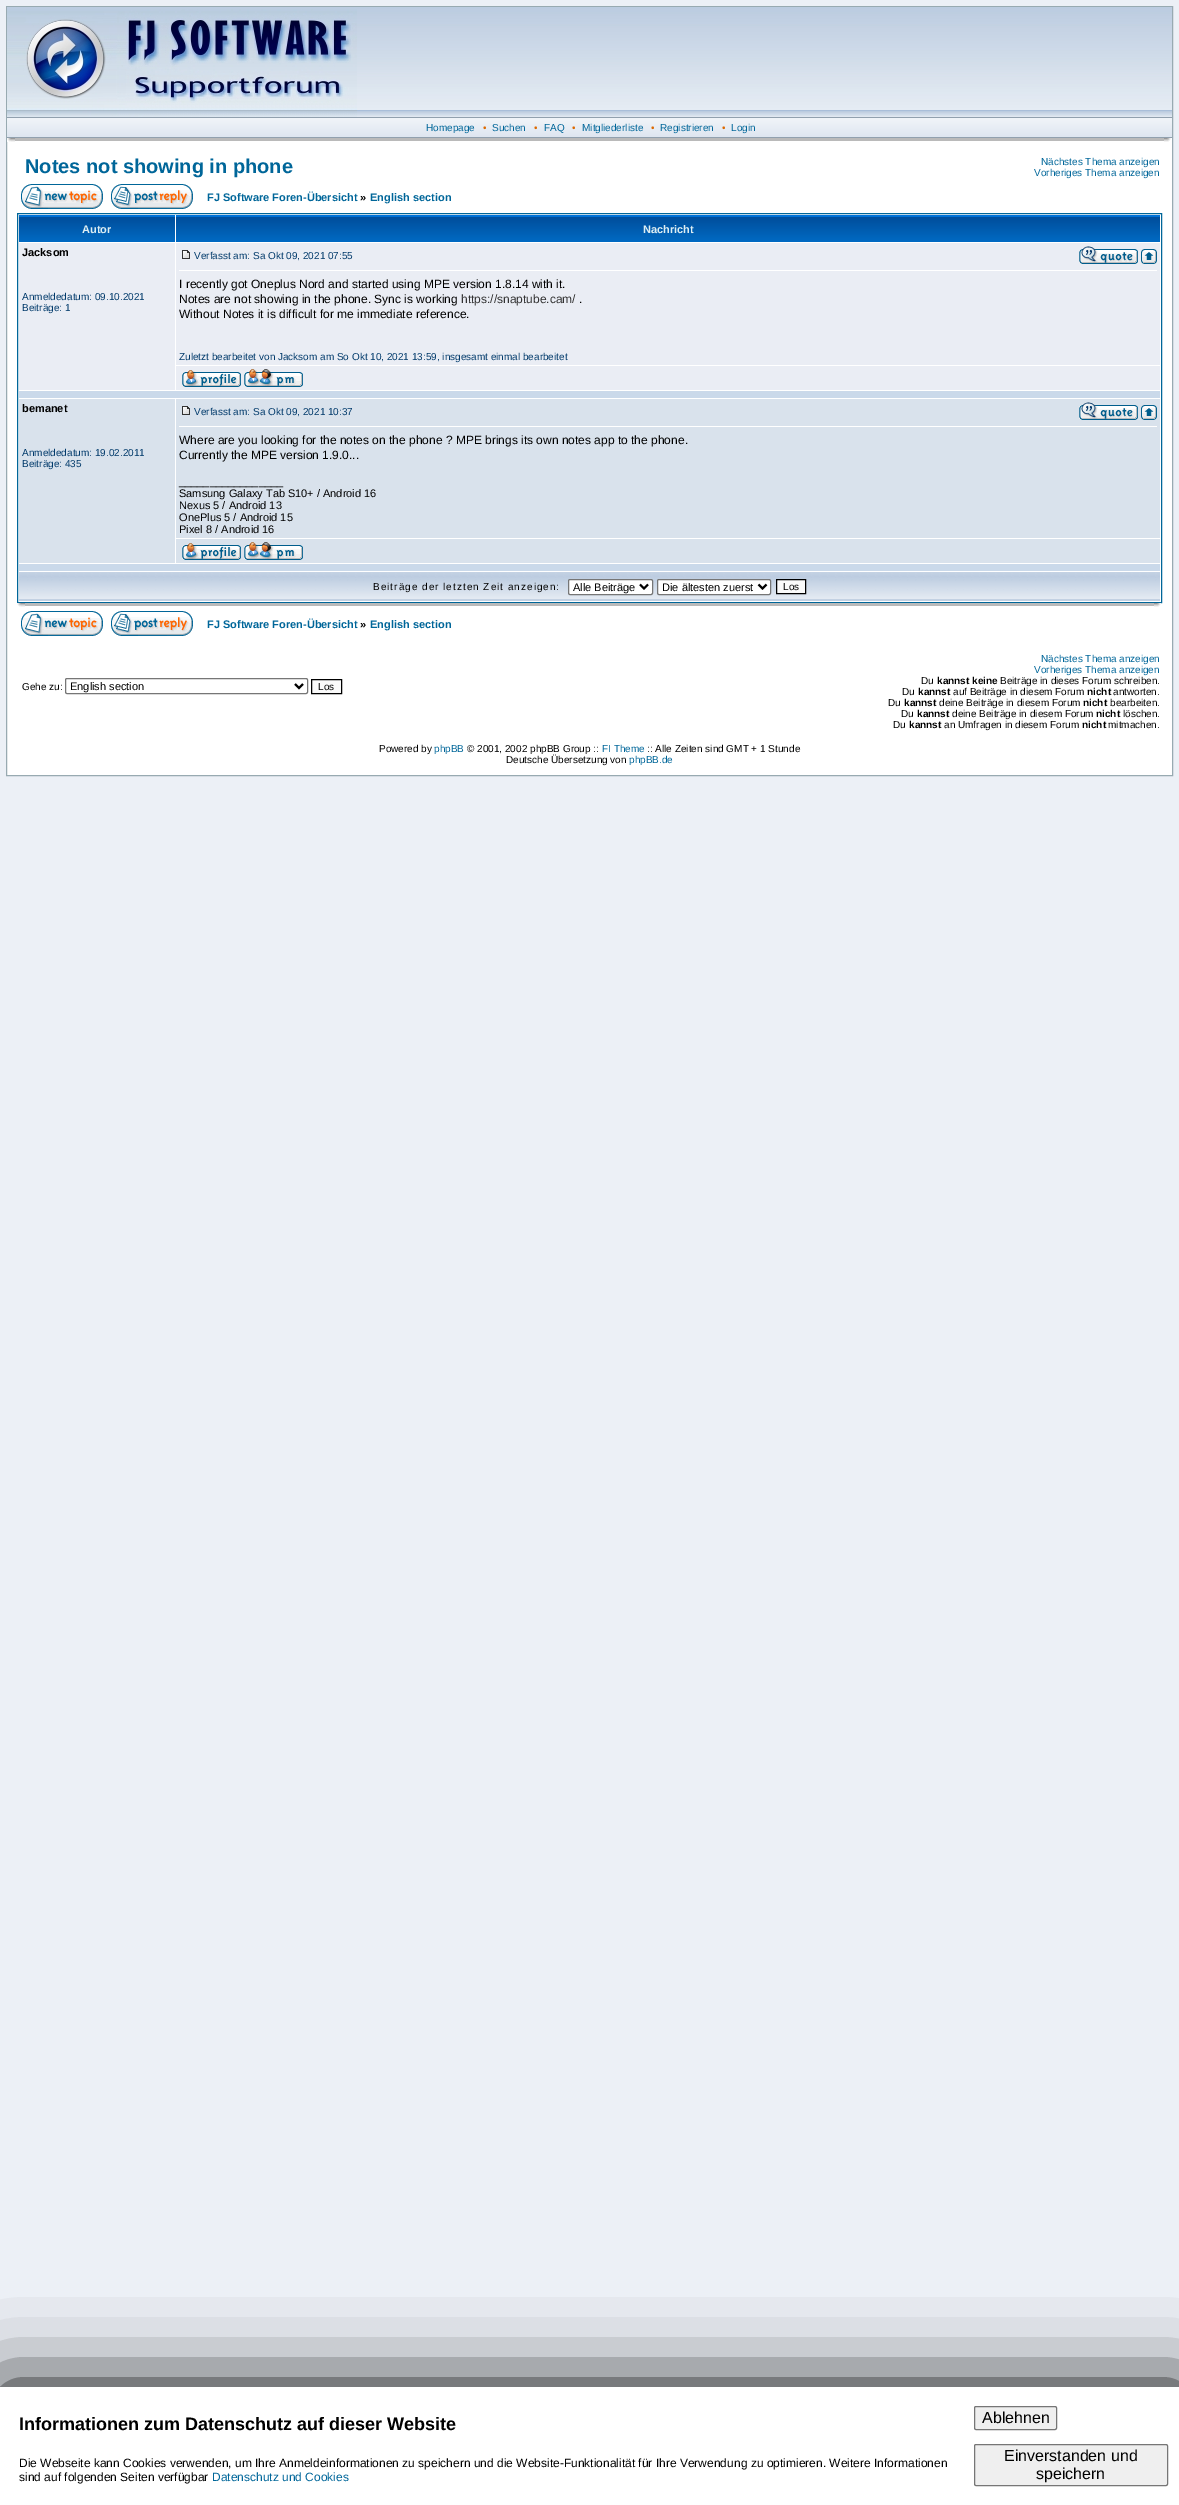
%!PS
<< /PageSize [1179 2505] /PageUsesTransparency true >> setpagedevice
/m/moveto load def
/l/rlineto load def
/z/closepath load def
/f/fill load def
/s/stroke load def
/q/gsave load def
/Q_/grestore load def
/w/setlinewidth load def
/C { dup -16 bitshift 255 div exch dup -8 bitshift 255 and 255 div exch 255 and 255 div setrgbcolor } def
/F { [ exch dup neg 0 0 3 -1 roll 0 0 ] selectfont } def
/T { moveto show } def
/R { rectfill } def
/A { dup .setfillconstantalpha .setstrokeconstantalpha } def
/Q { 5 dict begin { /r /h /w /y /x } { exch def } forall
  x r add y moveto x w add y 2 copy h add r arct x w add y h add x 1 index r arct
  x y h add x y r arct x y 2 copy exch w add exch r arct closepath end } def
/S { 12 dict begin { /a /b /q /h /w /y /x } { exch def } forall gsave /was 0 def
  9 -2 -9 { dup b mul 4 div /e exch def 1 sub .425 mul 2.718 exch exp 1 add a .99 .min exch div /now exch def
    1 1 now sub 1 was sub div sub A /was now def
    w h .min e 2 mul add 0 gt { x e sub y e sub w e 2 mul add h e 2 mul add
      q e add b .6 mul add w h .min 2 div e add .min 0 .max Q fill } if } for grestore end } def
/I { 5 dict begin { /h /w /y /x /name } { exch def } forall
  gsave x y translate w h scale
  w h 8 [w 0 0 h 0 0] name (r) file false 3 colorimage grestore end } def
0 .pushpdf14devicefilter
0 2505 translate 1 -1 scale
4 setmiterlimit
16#ECF0F6 C
0 0 1179 2505 R
16#FFFFFF C
7 138 1165 637 R
16#98AAB1 C
6.5 6.5 1166 769 rectstroke
(1.rgb) 7 7 1165 110 I
(2.rgb) 7 9 350 108 I
(3.rgb) 7 118 1165 19 I
16#91A0AE C
7 117 1165 1 R
7 137 1165 1 R
/LiberationSans-Regular 10 F
16#006699 C
(Homepage) 426 131 T
16#DD6900 C
(•) 483 131 T
16#006699 C
(Suchen) 492 131 T
16#DD6900 C
(•) 534 131 T
16#006699 C
(FAQ) 544 131 T
16#DD6900 C
(•) 572 131 T
16#006699 C
(Mitgliederliste) 582 131 T
16#DD6900 C
(•) 651 131 T
16#006699 C
(Registrieren) 660 131 T
16#DD6900 C
(•) 722 131 T
16#006699 C
(Login) 731 131 T
(4.rgb) 7 138 8 4 I
16#BABABA C
15 138 1149 3 R
(5.rgb) 1164 138 7 4 I
/LiberationSans-Bold 20 F
16#006699 C
(Notes not showing in phone) 25 173 T
/LiberationSans-Regular 10 F
(Nächstes Thema anzeigen) 1041 165 T
(Vorheriges Thema anzeigen) 1034 176 T
(6.rgb) 21 184 82 25 I
(7.rgb) 111 184 82 25 I
/LiberationSans-Bold 11 F
(FJ Software Foren-Übersicht) 207 201 T
16#000000 C
(») 360 201 T
16#006699 C
(English section) 370 201 T
17.5 213.5 1144 389 rectstroke
(8.rgb) 19 215 156 27 I
16#DEEEF3 C
(Autor) 82 233 T
(9.rgb) 176 215 984 27 I
(Nachricht) 643 233 T
16#EAEDF4 C
19 243 156 147 R
16#000000 C
(Jacksom) 22 256 T
/LiberationSans-Regular 10 F
16#00396A C
(Anmeldedatum: 09.10.2021) 22 300 T
(Beiträge: 1) 22 311 T
16#EAEDF4 C
176 243 984 122 R
(10.rgb) 182 250 8 9 I
16#00396A C
(Verfasst am: Sa Okt 09, 2021 07:55) 194 259 T
(11.rgb) 1079 246 59 18 I
(12.rgb) 1141 249 16 15 I
16#FFFFFF C
179 270 978 1 R
/LiberationSans-Regular 12 F
16#000000 C
(I recently got Oneplus Nord and started using MPE version 1.8.14 with it.) 179 288 T
(Notes are not showing in the phone. Sync is working) 179 303 T
16#333333 C
(https://snaptube.cam/) 461 303 T
16#000000 C
(.) 579 303 T
(Without Notes it is difficult for me immediate reference.) 179 318 T
/LiberationSans-Regular 10 F
16#00396A C
(Zuletzt bearbeitet von Jacksom am So Okt 10, 2021 13:59, insgesamt einmal bearbeitet) 179 360 T
16#EAEDF4 C
176 366 984 24 R
(13.rgb) 182 370 59 17 I
(14.rgb) 244 369 59 18 I
16#CAD9EA C
19 391 1141 7 R
16#D9E2EC C
19 399 156 164 R
/LiberationSans-Bold 11 F
16#000000 C
(bemanet) 22 412 T
/LiberationSans-Regular 10 F
16#00396A C
(Anmeldedatum: 19.02.2011) 22 456 T
(Beiträge: 435) 22 467 T
16#D9E2EC C
176 399 984 139 R
(15.rgb) 182 406 8 9 I
16#00396A C
(Verfasst am: Sa Okt 09, 2021 10:37) 194 415 T
(16.rgb) 1079 402 59 18 I
(17.rgb) 1141 405 16 15 I
16#FFFFFF C
179 426 978 1 R
/LiberationSans-Regular 12 F
16#000000 C
(Where are you looking for the notes on the phone ? MPE brings its own notes app to the phone.) 179 444 T
(Currently the MPE version 1.9.0...) 179 459 T
/LiberationSans-Regular 11 F
(_________________) 179 485 T
(Samsung Galaxy Tab S10+ / Android 16) 179 497 T
(Nexus 5 / Android 13) 179 509 T
(OnePlus 5 / Android 15) 179 521 T
(Pixel 8 / Android 16) 179 533 T
16#D9E2EC C
176 539 984 24 R
(18.rgb) 182 543 59 17 I
(19.rgb) 244 542 59 18 I
16#CAD9EA C
19 564 1141 7 R
(20.rgb) 19 572 1141 29 I
/LiberationSans-Regular 10 F
16#000000 C
373 590 m 1 0 (Beiträge der letzten Zeit anzeigen:) ashow
16#FFFFFF C
568.5 579.5 84 15 1.5 Q q f Q_
16#767676 C
s
16#000000 C
2 w
640 584.5 m 4 4 l 4 -4 l s
/LiberationSans-Regular 11 F
(Alle Beiträge) 573 591 T
16#FFFFFF C
657.5 579.5 113 15 1.5 Q q f Q_
16#767676 C
1 w
s
16#000000 C
2 w
758.5 584.5 m 4 4 l 4 -4 l s
(Die ältesten zuerst) 662 591 T
16#FAFAFA C
776.5 579.5 m 29 0 l 0 14 l -29 0 l z q f Q_
16#000000 C
1 w
s
/LiberationSans-Regular 10 F
(Los) 783 590 T
(4.rgb) 17 603 8 4 I
16#BABABA C
25 603 1129 3 R
(5.rgb) 1154 603 7 4 I
(6.rgb) 21 611 82 25 I
(7.rgb) 111 611 82 25 I
/LiberationSans-Bold 11 F
16#006699 C
(FJ Software Foren-Übersicht) 207 628 T
16#000000 C
(») 360 628 T
16#006699 C
(English section) 370 628 T
/LiberationSans-Regular 10 F
16#000000 C
(Gehe zu:) 22 690 T
16#767676 C
65.5 678.5 242 15 1.5 Q s
16#000000 C
2 w
295 684 m 4 4 l 4 -4 l s
/LiberationSans-Regular 11 F
(English section) 70 690 T
16#FAFAFA C
311.5 679.5 m 30 0 l 0 14 l -30 0 l z q f Q_
16#000000 C
1 w
s
/LiberationSans-Regular 10 F
(Los) 318 690 T
16#006699 C
(Nächstes Thema anzeigen) 1041 662 T
(Vorheriges Thema anzeigen) 1034 673 T
16#000000 C
(Du) 921 684 T
/LiberationSans-Bold 10 F
(kannst keine) 937 684 T
/LiberationSans-Regular 10 F
(Beiträge in dieses Forum schreiben.) 1000 684 T
(Du) 902 695 T
/LiberationSans-Bold 10 F
(kannst) 918 695 T
/LiberationSans-Regular 10 F
(auf Beiträge in diesem Forum) 953 695 T
/LiberationSans-Bold 10 F
(nicht) 1087 695 T
/LiberationSans-Regular 10 F
(antworten.) 1113 695 T
(Du) 888 706 T
/LiberationSans-Bold 10 F
(kannst) 904 706 T
/LiberationSans-Regular 10 F
(deine Beiträge in diesem Forum) 939 706 T
/LiberationSans-Bold 10 F
(nicht) 1083 706 T
/LiberationSans-Regular 10 F
(bearbeiten.) 1110 706 T
(Du) 901 717 T
/LiberationSans-Bold 10 F
(kannst) 917 717 T
/LiberationSans-Regular 10 F
(deine Beiträge in diesem Forum) 952 717 T
/LiberationSans-Bold 10 F
(nicht) 1096 717 T
/LiberationSans-Regular 10 F
(löschen.) 1123 717 T
(Du) 893 728 T
/LiberationSans-Bold 10 F
(kannst) 909 728 T
/LiberationSans-Regular 10 F
(an Umfragen in diesem Forum) 944 728 T
/LiberationSans-Bold 10 F
(nicht) 1082 728 T
/LiberationSans-Regular 10 F
(mitmachen.) 1108 728 T
(Powered by) 379 752 T
16#006699 C
(phpBB) 434 752 T
16#000000 C
(© 2001, 2002 phpBB Group ::) 467 752 T
16#006699 C
(FI Theme) 602 752 T
16#000000 C
(:: Alle Zeiten sind GMT + 1 Stunde) 647 752 T
(Deutsche Übersetzung von) 506 763 T
16#006699 C
(phpBB.de) 629 763 T
16#000000 C
0 2387 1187 118 0 40 1 S
16#FFFFFF C
0 2387 1179 118 R
/LiberationSans-Bold 18 F
16#000000 C
(Informationen zum Datenschutz auf dieser Website) 19 2430 T
/LiberationSans-Regular 12 F
(Die Webseite kann Cookies verwenden, um Ihre Anmeldeinformationen zu speichern und die Website-Funktionalität für Ihre Verwendung zu optimieren. Weitere Informationen) 19 2467 T
(sind auf folgenden Seiten verfügbar) 19 2481 T
16#006699 C
(Datenschutz und Cookies) 212 2481 T
16#EFEFEF C
974.5 2406.5 82 23 1.5 Q q f Q_
16#767676 C
s
/LiberationSans-Regular 16 F
16#000000 C
(Ablehnen) 982 2423 T
16#EFEFEF C
974.5 2444.5 193 41 1.5 Q q f Q_
16#767676 C
s
16#000000 C
(Einverstanden und) 1004 2461 T
(speichern) 1036 2479 T
.poppdf14devicefilter showpage
